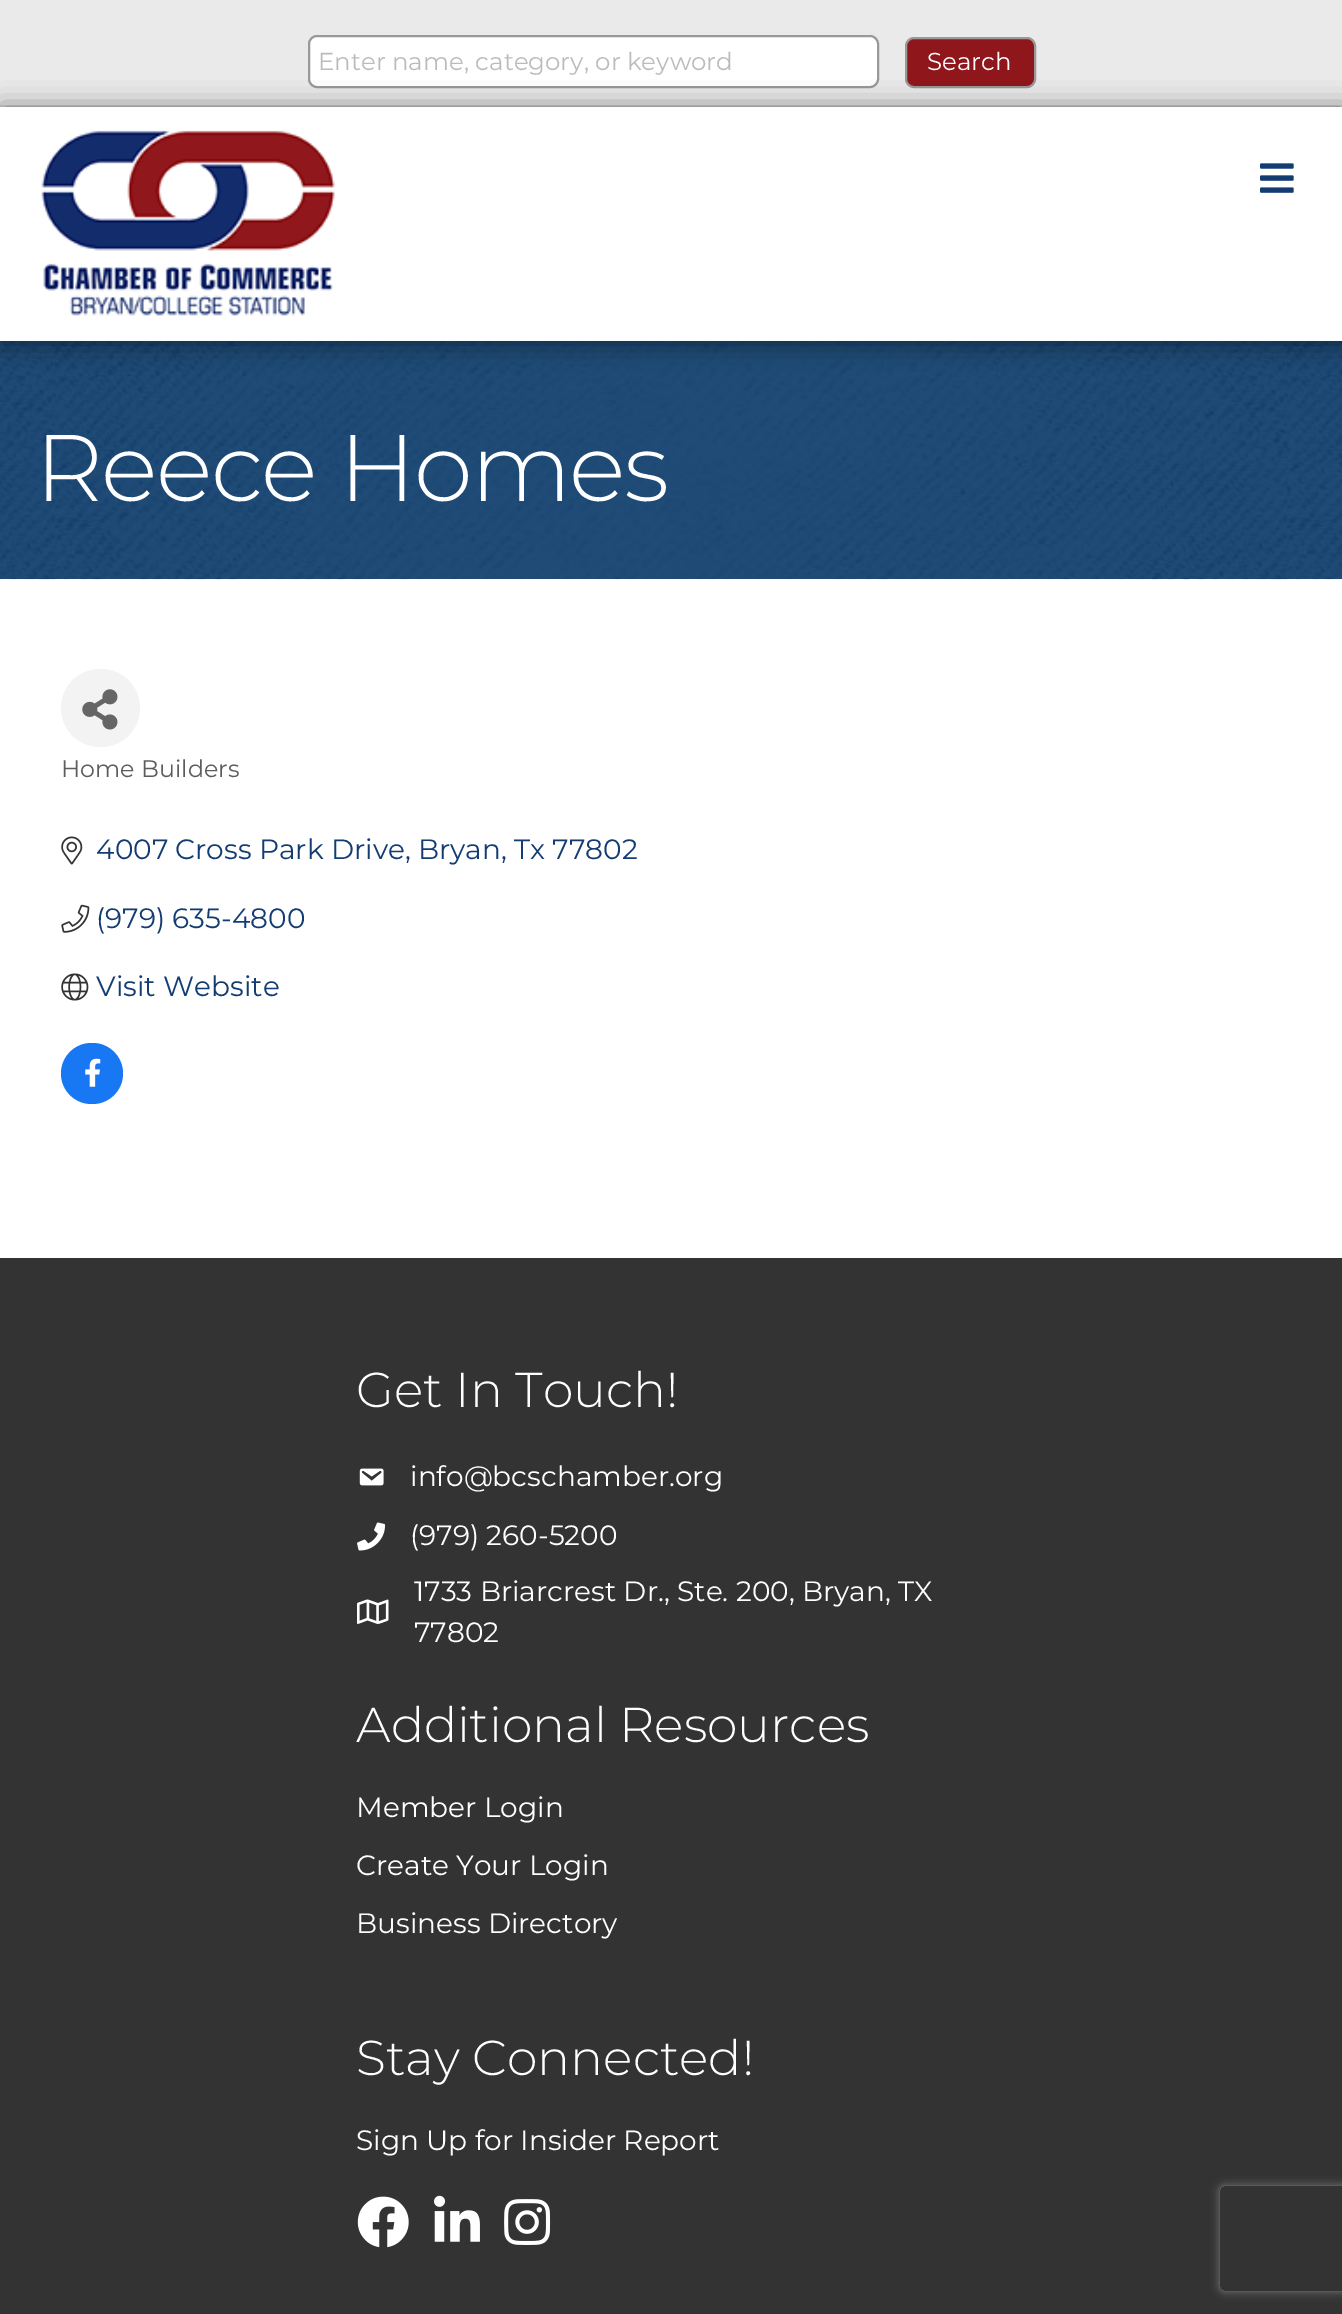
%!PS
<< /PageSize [1342 2314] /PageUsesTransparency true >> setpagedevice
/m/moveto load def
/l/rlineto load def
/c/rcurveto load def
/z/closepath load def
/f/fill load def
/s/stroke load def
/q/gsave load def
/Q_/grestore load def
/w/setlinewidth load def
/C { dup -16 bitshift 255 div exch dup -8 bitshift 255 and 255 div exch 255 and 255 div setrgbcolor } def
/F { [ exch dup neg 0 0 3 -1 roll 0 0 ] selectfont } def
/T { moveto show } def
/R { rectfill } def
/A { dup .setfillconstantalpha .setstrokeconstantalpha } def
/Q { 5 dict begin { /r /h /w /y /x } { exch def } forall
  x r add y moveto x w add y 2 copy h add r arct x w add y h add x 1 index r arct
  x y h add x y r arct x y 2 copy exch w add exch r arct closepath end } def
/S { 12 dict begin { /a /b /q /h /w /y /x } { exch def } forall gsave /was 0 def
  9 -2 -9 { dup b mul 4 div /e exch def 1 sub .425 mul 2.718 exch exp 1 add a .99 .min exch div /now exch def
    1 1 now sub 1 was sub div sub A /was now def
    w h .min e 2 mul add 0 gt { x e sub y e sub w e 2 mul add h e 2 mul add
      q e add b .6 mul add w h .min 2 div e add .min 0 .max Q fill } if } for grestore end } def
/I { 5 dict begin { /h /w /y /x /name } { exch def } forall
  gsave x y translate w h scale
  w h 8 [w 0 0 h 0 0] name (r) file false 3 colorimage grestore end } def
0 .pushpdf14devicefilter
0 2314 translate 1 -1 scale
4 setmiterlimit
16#FFFFFF C
0 0 1342 2314 R
16#EAEAEA C
0 0 1342 105 R
16#D1D1D1 C
0 105 1342 2 R
16#FFFFFF C
309 36 569 51 8 Q q f Q_
16#999999 C
2 w
s
/Montserrat-Regular 24.5 F
16#BBBBBB C
(Enter name, category, or keyword) 318 70 T
16#8F161B C
906 38 129 49 8 Q q f Q_
16#999999 C
s
16#FFFFFF C
(Search) 927 70 T
(3.rgb) 0 341 1342 239 I
q
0 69 m 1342 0 l 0 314 l -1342 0 l z 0 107 m 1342 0 l 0 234 l -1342 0 l z eoclip newpath
16#000000 C
2 109 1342 234 0 13 .5 S
Q_
(1.rgb) 41 130 294 186 I
(2.rgb) 1260 163 34 30 I
/Montserrat-Light 94.5 F
35 501 m -1.75 0 (Reece Homes) ashow
16#F3F3F3 C
61 669 79 78 39 Q f
(4.rgb) 82 689 36 41 I
/Montserrat-Regular 23.75 F
16#5C5C5C C
(Home Builders) 61 777 T
(5.rgb) 61 836 22 29 I
/Montserrat-Regular 28 F
16#133C73 C
(4007 Cross Park Drive, Bryan, Tx 77802) 96 859 T
(6.rgb) 61 904 29 29 I
(\(979\) 635-4800) 96 928 T
(7.rgb) 61 973 28 28 I
(Visit Website) 96 996 T
16#1877F2 C
61 1043 62 61 30.5 Q f
(8.rgb) 85 1058 16 29 I
16#333333 C
0 1258 1342 1056 R
/Montserrat-Light 49 F
16#FFFFFF C
(Get In Touch!) 356 1407 T
(9.rgb) 359 1468 25 18 I
/Montserrat-Regular 28 F
(info@bcschamber.org) 410 1486 T
(10.rgb) 357 1522 29 29 I
(\(979\) 260-5200) 410 1545 T
(11.rgb) 357 1599 32 25 I
(1733 Briarcrest Dr., Ste. 200, Bryan, TX) 414 1601 T
(77802) 414 1642 T
/Montserrat-Light 49 F
(Additional Resources) 356 1742 T
/Montserrat-Regular 28 F
(Member Login) 356 1817 T
(Create Your Login) 356 1875 T
(Business Directory) 356 1933 T
/Montserrat-Light 49 F
(Stay Connected!) 356 2075 T
/Montserrat-Regular 28 F
(Sign Up for Insider Report) 356 2150 T
(12.rgb) 357 2196 52 52 I
(13.rgb) 434 2195 46 47 I
(14.rgb) 504 2199 47 46 I
q
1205 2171 m 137 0 l 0 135 l -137 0 l z 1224 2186 m 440 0 l 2 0 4 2 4 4 c 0 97 l 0 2 -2 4 -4 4 c -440 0 l -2 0 -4 -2 -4 -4 c 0 -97 l 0 -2 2 -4 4 -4 c z eoclip newpath
16#808080 C
1220 2186 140 105 4 4.5 1 S
Q_
.poppdf14devicefilter showpage
